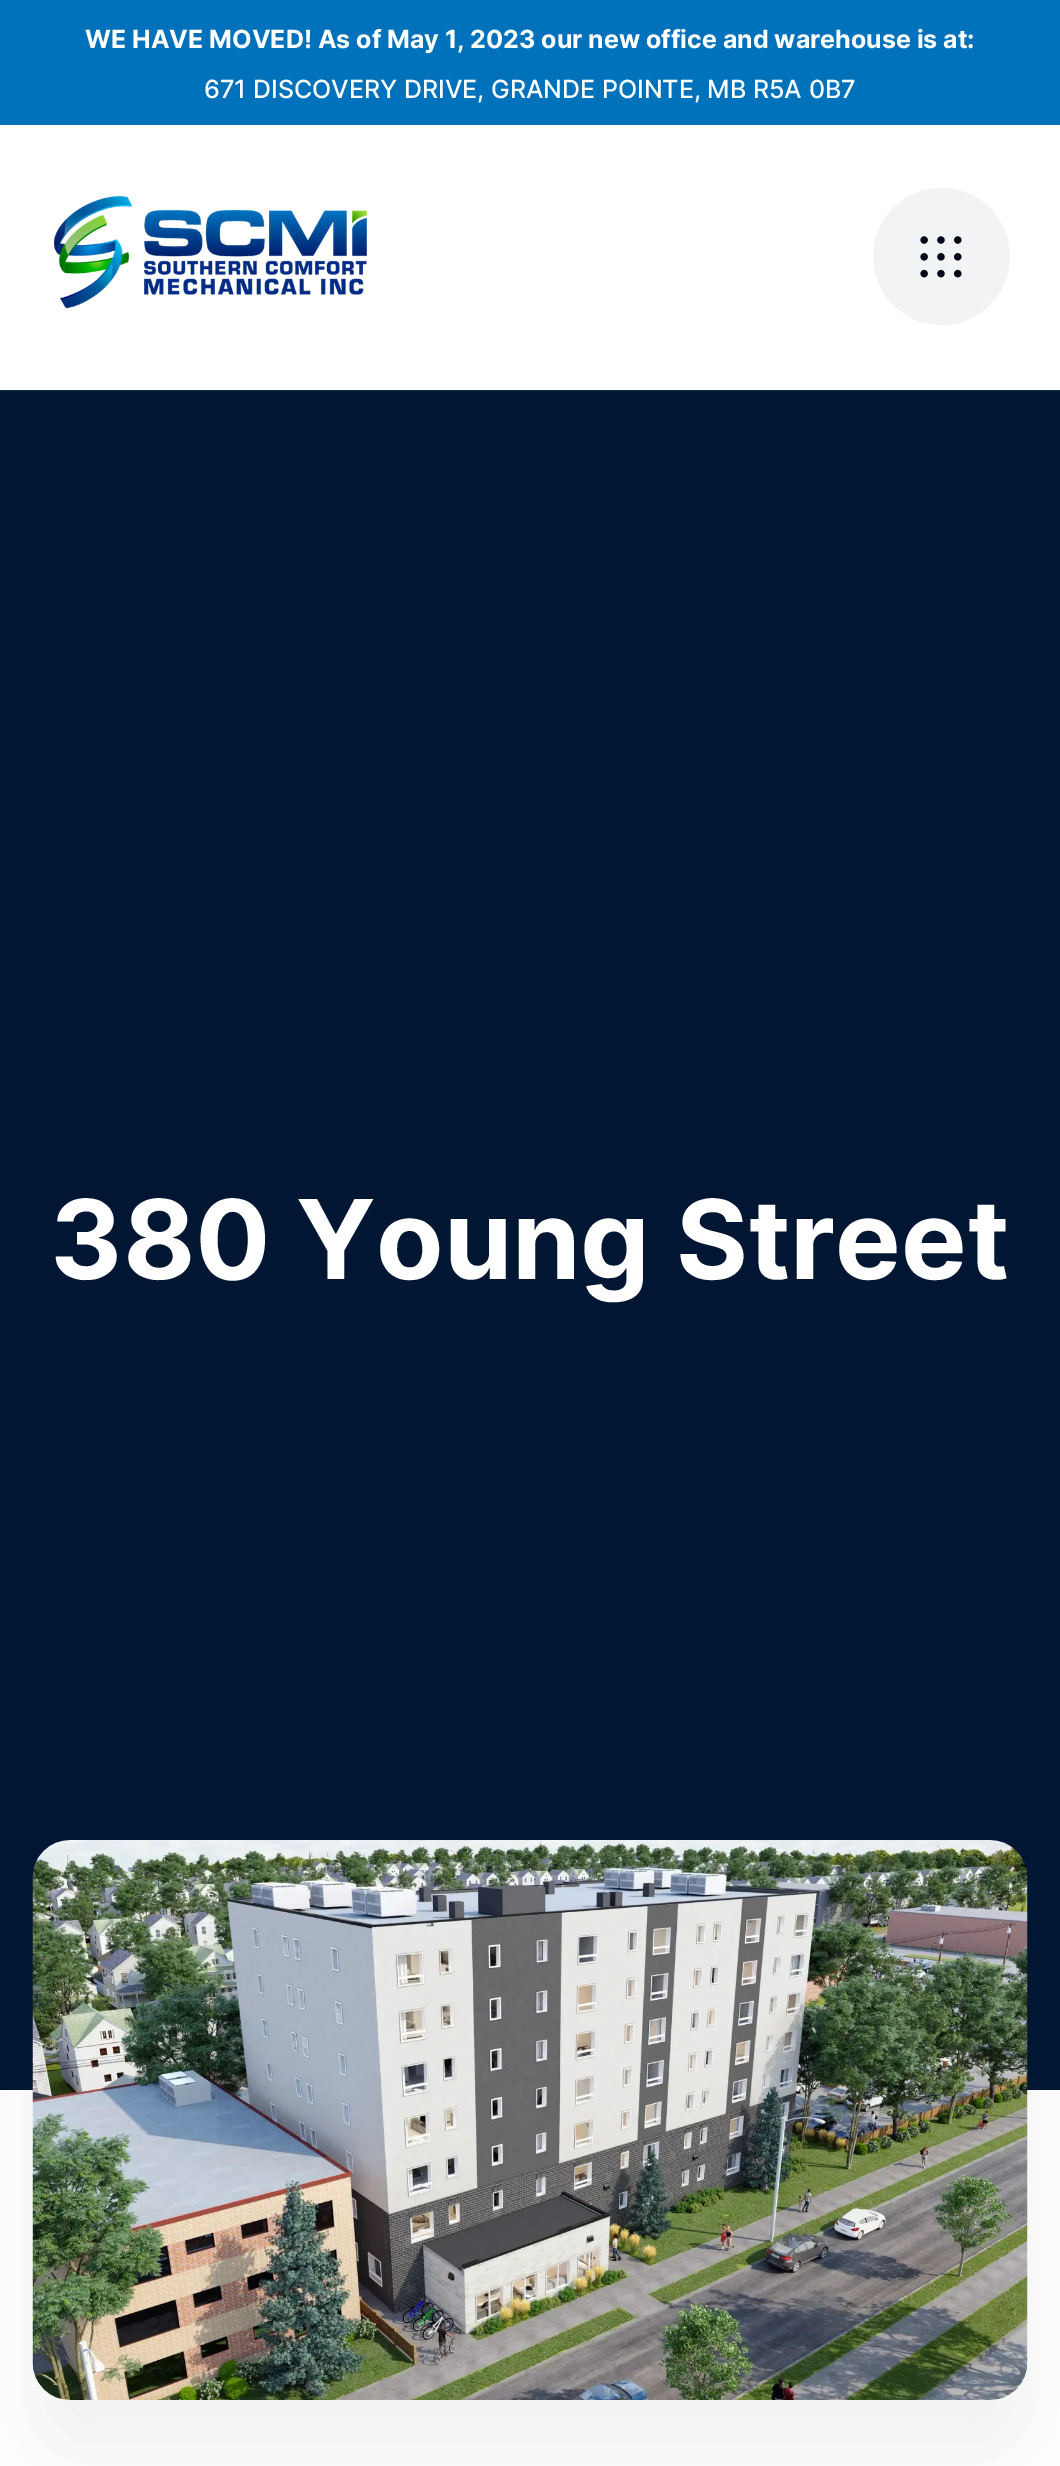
%!PS
<< /PageSize [1060 2466] /PageUsesTransparency true >> setpagedevice
/f/fill load def
/C { dup -16 bitshift 255 div exch dup -8 bitshift 255 and 255 div exch 255 and 255 div setrgbcolor } def
/F { [ exch dup neg 0 0 3 -1 roll 0 0 ] selectfont } def
/T { moveto show } def
/R { rectfill } def
/A { dup .setfillconstantalpha .setstrokeconstantalpha } def
/O { newpath 0 360 arc closepath } def
/Q { 5 dict begin { /r /h /w /y /x } { exch def } forall
  x r add y moveto x w add y 2 copy h add r arct x w add y h add x 1 index r arct
  x y h add x y r arct x y 2 copy exch w add exch r arct closepath end } def
/S { 12 dict begin { /a /b /q /h /w /y /x } { exch def } forall gsave /was 0 def
  9 -2 -9 { dup b mul 4 div /e exch def 1 sub .425 mul 2.718 exch exp 1 add a .99 .min exch div /now exch def
    1 1 now sub 1 was sub div sub A /was now def
    w h .min e 2 mul add 0 gt { x e sub y e sub w e 2 mul add h e 2 mul add
      q e add b .6 mul add w h .min 2 div e add .min 0 .max Q fill } if } for grestore end } def
/I { 5 dict begin { /h /w /y /x /name } { exch def } forall
  gsave x y translate w h scale
  w h 8 [w 0 0 h 0 0] name (r) file false 3 colorimage grestore end } def
0 .pushpdf14devicefilter
0 2466 translate 1 -1 scale
4 setmiterlimit
16#FFFFFF C
0 0 1060 2466 R
16#0072BB C
0 0 1060 125 R
/Inter-Bold 25 F
16#FFFFFF C
(WE HAVE MOVED! As of May 1, 2023 our new office and warehouse is at:) 85 48 T
/Inter-Medium 25 F
(671 DISCOVERY DRIVE, GRANDE POINTE, MB R5A 0B7) 204 98 T
(1.rgb) 54 195 313 114 I
16#F1F3F5 C
941.5 256.5 68.5 O f
(2.rgb) 920 236 42 42 I
16#001632 C
0 391 1060 1699 R
16#142942 C
0 390 1060 1 R
/Inter-Bold 110 F
16#FFFFFF C
(380 Young Street) 50 1279 T
16#000000 C
33 1895 995 560 38 42.5 .06 S
(3.rgb) 32 1840 996 560 I
.poppdf14devicefilter showpage
